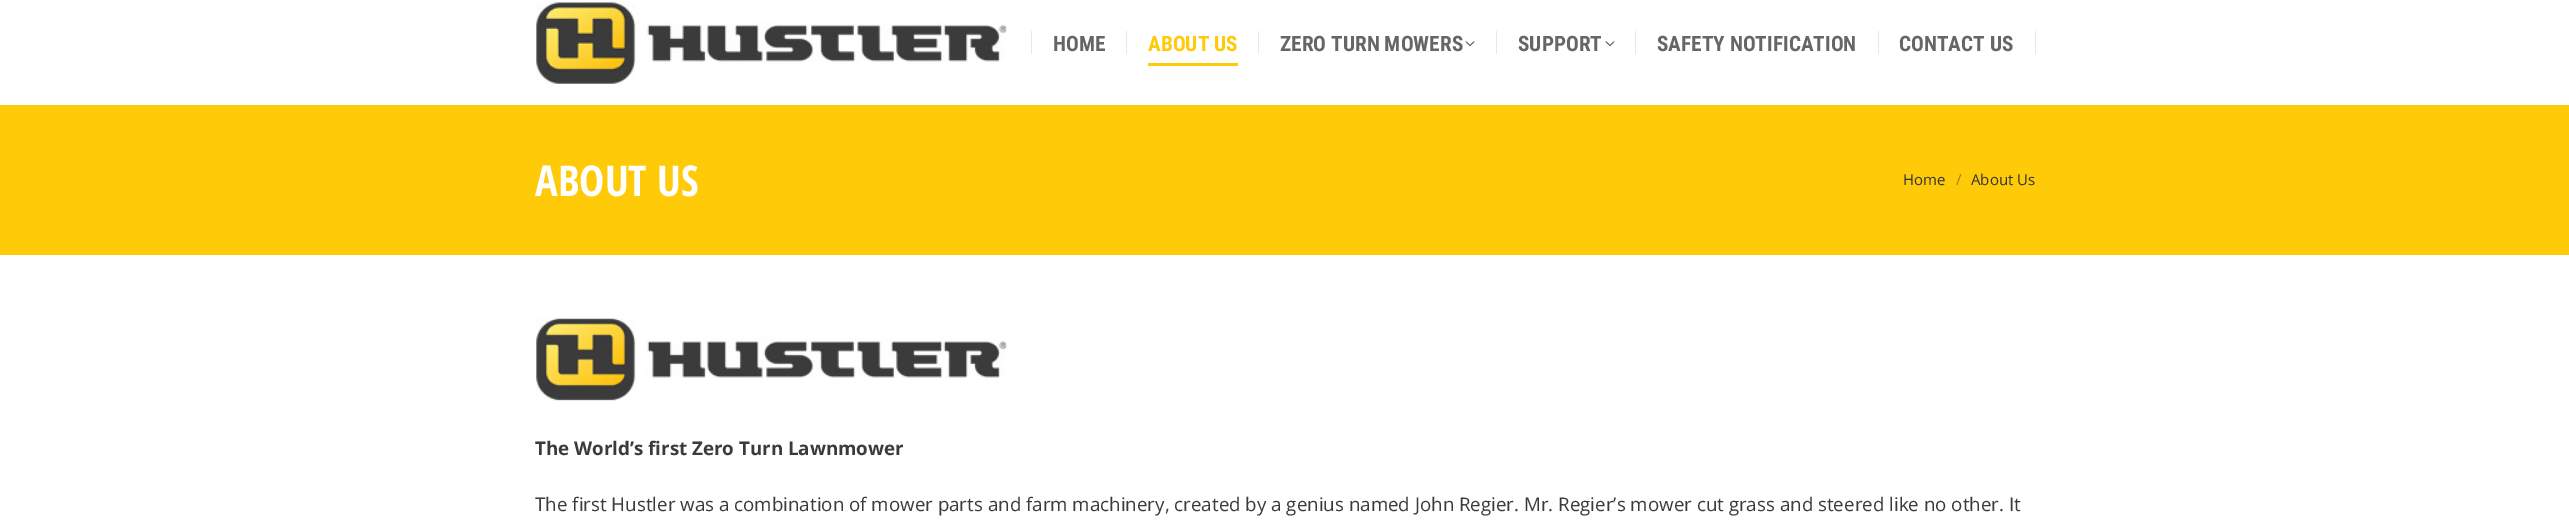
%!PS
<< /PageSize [2569 524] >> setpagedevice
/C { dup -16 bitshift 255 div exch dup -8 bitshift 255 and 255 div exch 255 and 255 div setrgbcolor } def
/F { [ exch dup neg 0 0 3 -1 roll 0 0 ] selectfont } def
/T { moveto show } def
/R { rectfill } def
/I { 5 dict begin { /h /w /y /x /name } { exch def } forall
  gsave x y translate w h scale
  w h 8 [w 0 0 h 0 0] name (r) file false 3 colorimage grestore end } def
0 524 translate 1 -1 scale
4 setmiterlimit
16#FFFFFF C
0 0 2569 524 R
(1.rgb) 536 1 471 83 I
16#E7E7E7 C
1031 31 1 23 R
/RobotoCondensed-Bold 21.25 F
16#666666 C
(HOME) 1053 51 T
16#E7E7E7 C
1126 31 1 23 R
16#FFCA07 C
(ABOUT US) 1148 51 T
1148 63 90 3 R
16#E7E7E7 C
1258 31 1 23 R
16#666666 C
(ZERO TURN MOWERS) 1280 51 T
(2.rgb) 1465 41 10 6 I
16#E7E7E7 C
1496 31 1 23 R
16#666666 C
(SUPPORT) 1518 51 T
(2.rgb) 1605 41 10 6 I
16#E7E7E7 C
1635 31 1 23 R
16#666666 C
(SAFETY NOTIFICATION) 1657 51 T
16#E7E7E7 C
1878 31 1 23 R
16#666666 C
(CONTACT US) 1899 51 T
16#E7E7E7 C
2035 31 1 23 R
16#FFCA07 C
0 105 2569 150 R
/OpenSansCondensed-Bold 42.5 F
16#FFFFFF C
(ABOUT US) 535 196 T
/OpenSans-Regular 15 F
16#333333 C
(Home) 1903 185 T
16#997F1D C
(/) 1956 185 T
16#333333 C
(About Us) 1971 185 T
(3.rgb) 536 317 471 84 I
/OpenSans-Bold 18.75 F
16#3B3B3C C
(The World’s first Zero Turn Lawnmower) 535 455 T
/OpenSans-Regular 18.75 F
(The first Hustler was a combination of mower parts and farm machinery, created by a genius named John Regier. Mr. Regier’s mower cut grass and steered like no other. It) 535 511 T
showpage
